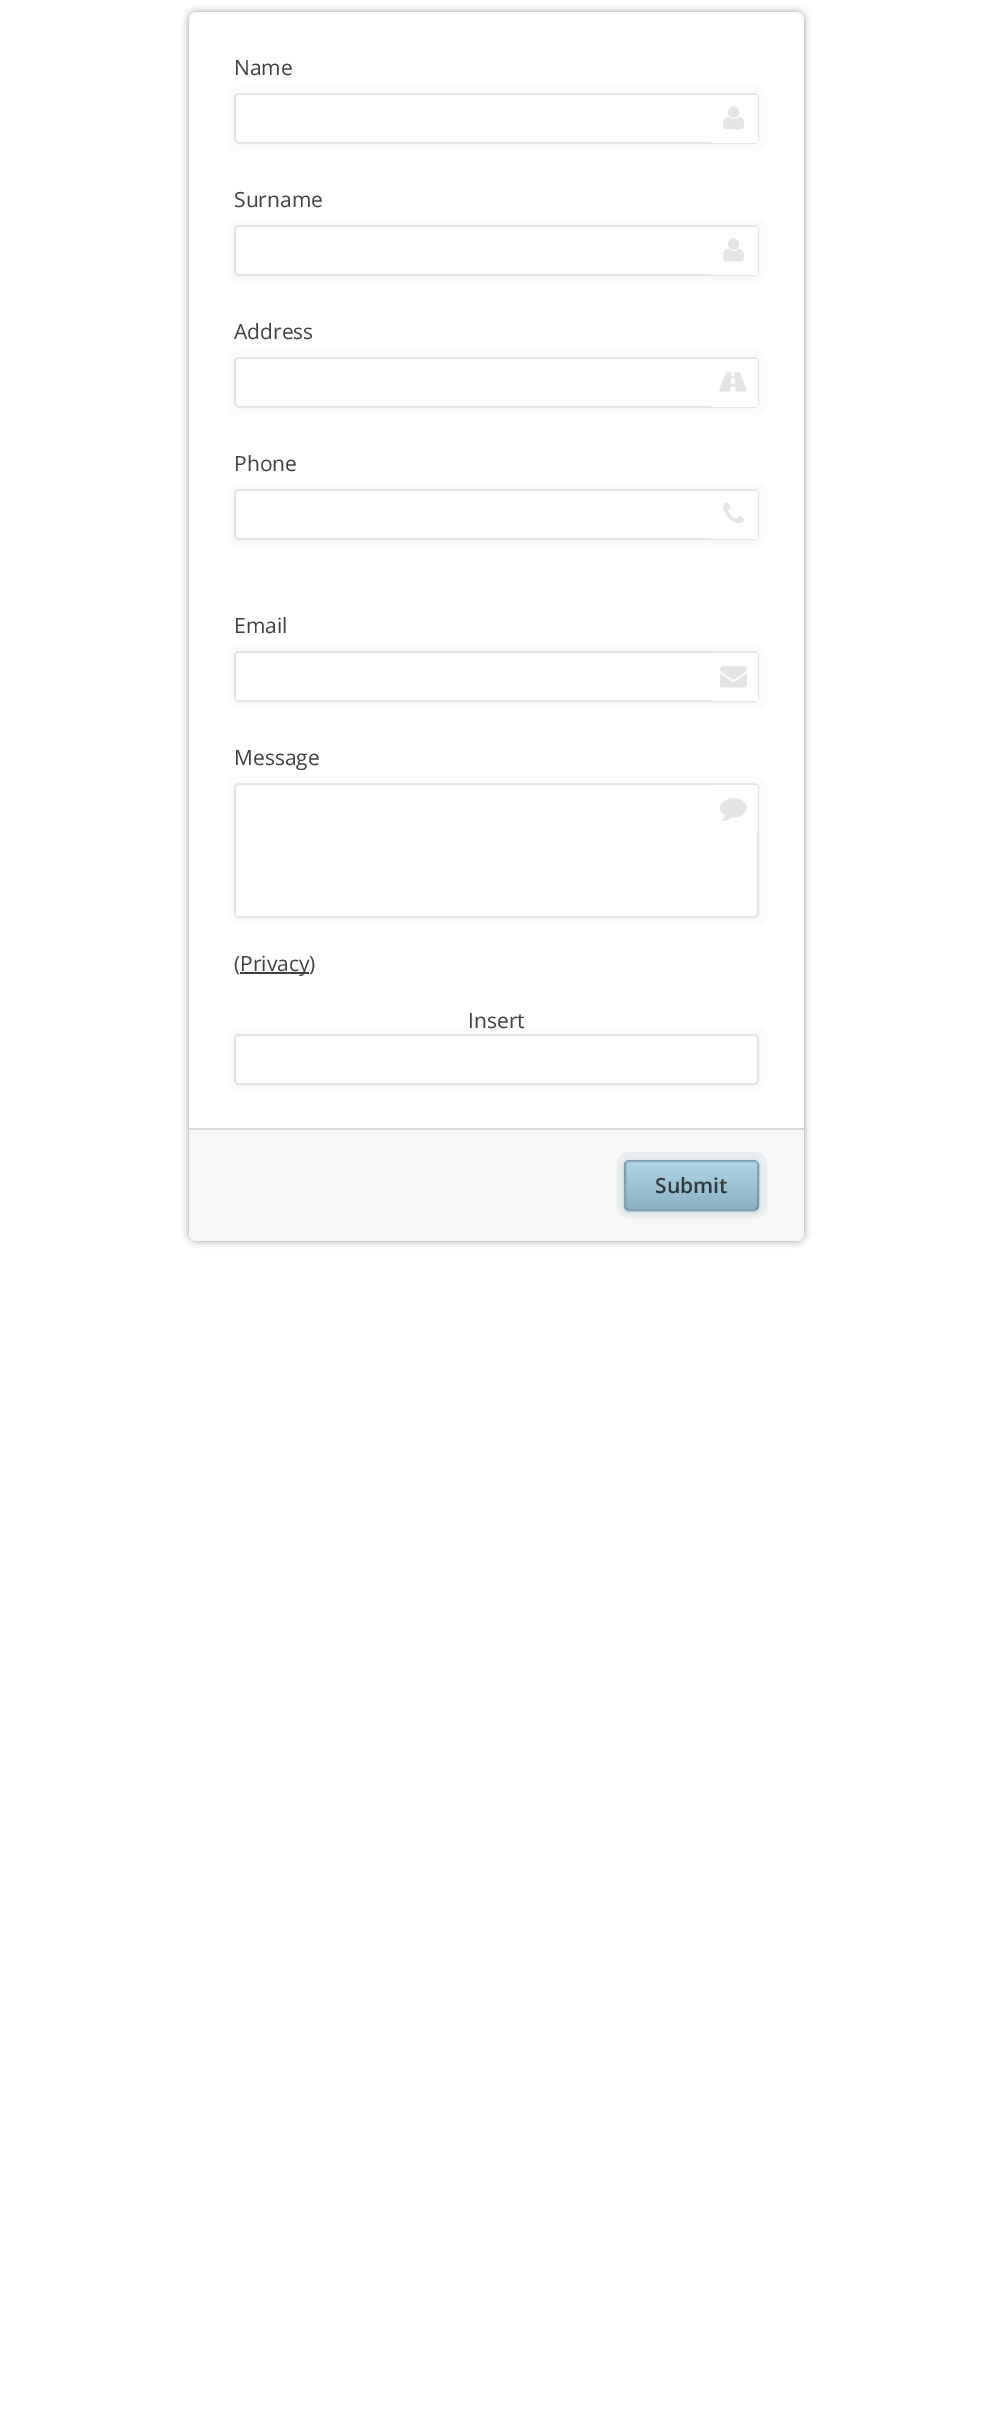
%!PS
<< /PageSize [1004 2431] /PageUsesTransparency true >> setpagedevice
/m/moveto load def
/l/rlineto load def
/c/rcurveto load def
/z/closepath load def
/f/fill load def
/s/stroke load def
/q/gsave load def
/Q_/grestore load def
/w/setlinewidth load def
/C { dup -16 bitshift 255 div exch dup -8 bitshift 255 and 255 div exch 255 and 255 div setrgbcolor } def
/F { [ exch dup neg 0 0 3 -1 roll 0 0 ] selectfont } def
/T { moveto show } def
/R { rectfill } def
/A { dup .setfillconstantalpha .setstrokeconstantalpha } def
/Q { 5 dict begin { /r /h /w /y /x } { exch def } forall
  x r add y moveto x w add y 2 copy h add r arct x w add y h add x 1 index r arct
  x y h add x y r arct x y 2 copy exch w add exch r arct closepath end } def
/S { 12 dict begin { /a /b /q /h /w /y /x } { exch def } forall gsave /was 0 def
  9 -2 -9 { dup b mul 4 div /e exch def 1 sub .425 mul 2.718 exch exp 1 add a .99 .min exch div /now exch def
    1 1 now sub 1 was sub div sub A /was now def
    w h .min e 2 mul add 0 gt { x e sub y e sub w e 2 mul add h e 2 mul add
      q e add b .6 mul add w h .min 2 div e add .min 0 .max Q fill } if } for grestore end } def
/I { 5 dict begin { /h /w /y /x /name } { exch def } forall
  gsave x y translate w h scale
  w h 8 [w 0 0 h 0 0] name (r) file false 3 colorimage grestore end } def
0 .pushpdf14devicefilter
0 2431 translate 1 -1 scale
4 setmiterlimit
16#FFFFFF C
0 0 1004 2431 R
16#999999 C
189 12 615 1229 8 4 1 S
16#FFFFFF C
189 12 615 1229 8 Q f
/OpenSans-Regular 21 F
16#404040 C
(Name) 234 75 T
16#FBFBFB C
8 w
231 90 532 58 8 Q s
16#FFFFFF C
235 94 523 49 4 Q q f Q_
16#E5E5E5 C
2 w
s
16#FFFFFF C
710 95 48 48 3 Q f
(1.rgb) 723 106 22 24 I
16#404040 C
(Surname) 234 207 T
16#FBFBFB C
8 w
231 222 532 58 8 Q s
16#FFFFFF C
235 226 523 49 4 Q q f Q_
16#E5E5E5 C
2 w
s
16#FFFFFF C
710 227 48 48 3 Q f
(1.rgb) 723 238 22 24 I
16#404040 C
(Address) 234 339 T
16#FBFBFB C
8 w
231 354 532 58 8 Q s
16#FFFFFF C
235 358 523 49 4 Q q f Q_
16#E5E5E5 C
2 w
s
16#FFFFFF C
710 359 48 48 3 Q f
(2.rgb) 719 372 28 20 I
16#404040 C
(Phone) 234 471 T
16#FBFBFB C
8 w
231 486 532 58 8 Q s
16#FFFFFF C
235 490 523 49 4 Q q f Q_
16#E5E5E5 C
2 w
s
16#FFFFFF C
710 491 48 48 3 Q f
(3.rgb) 723 502 21 22 I
16#404040 C
(Email) 234 633 T
16#FBFBFB C
8 w
231 648 532 58 8 Q s
16#FFFFFF C
235 652 523 49 4 Q q f Q_
16#E5E5E5 C
2 w
s
16#FFFFFF C
710 653 48 48 3 Q f
(4.rgb) 720 666 27 22 I
16#404040 C
(Message) 234 765 T
16#FBFBFB C
8 w
231 780 532 142 8 Q s
16#FFFFFF C
235 784 523 133 4 Q q f Q_
16#E5E5E5 C
2 w
s
16#FFFFFF C
710 785 48 48 3 Q f
(5.rgb) 720 798 27 24 I
16#404040 C
(\() 234 971 T
240 972 69 2 R
(Privacy\)) 240 971 T
16#FBFBFB C
8 w
231 1030 532 58 8 Q s
16#404040 C
(Insert) 468 1028 T
16#FFFFFF C
235 1035 523 49 4 Q q f Q_
16#E5E5E5 C
2 w
s
16#F7F7F7 C
189 1128 m 615 0 l 0 105 l 0 4.5 -3.5 8 -8 8 c -599 0 l -4.5 0 -8 -3.5 -8 -8 c z f
16#D9D9D9 C
189 1128 615 2 R
16#EBEEF0 C
8 w
621 1156 142 58 8 Q s
16#7DA1B3 C
624 1161 135 51 5 2 .5 S
16#A1CFE5 C
625 1161 133 49 4 Q q f Q_
16#7DA1B3 C
2 w
s
/OpenSans-SemiBold 21 F
16#242E33 C
(Submit) 655 1193 T
0.15 A
q 626 1161 132 48 3 Q clip newpath
<< /ShadingType 2 /ColorSpace /DeviceRGB /Coords [692 1209 692 1161] /Extend [true true] /Function << /FunctionType 2 /Domain [0 1] /C0 [0 0 0] /C1 [1 1 1] /N 1 >> >> shfill Q_
.poppdf14devicefilter showpage
